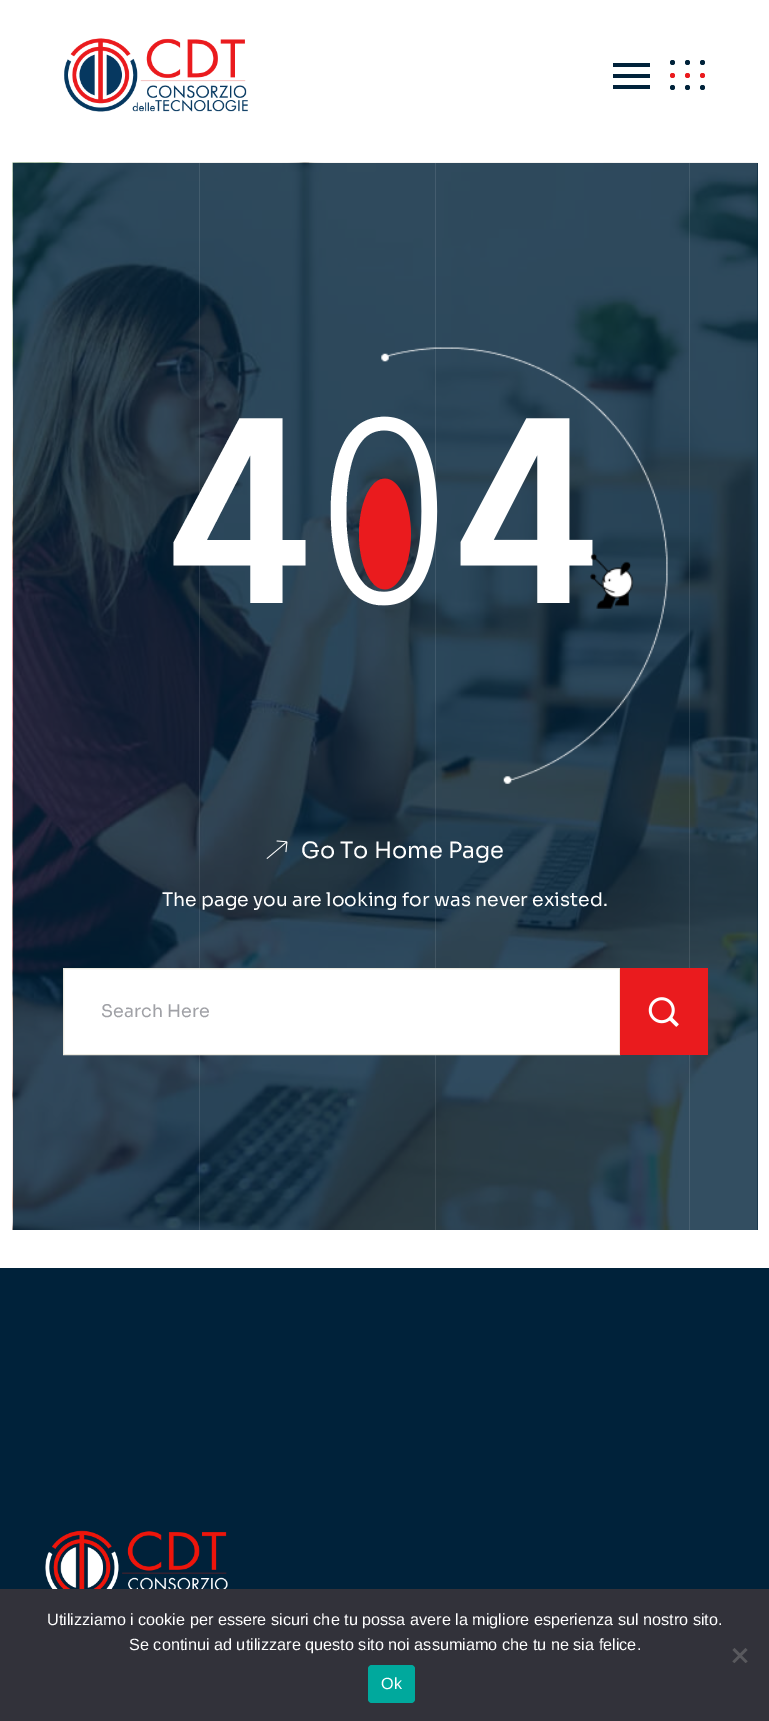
%!PS
<< /PageSize [769 1721] /PageUsesTransparency true >> setpagedevice
/m/moveto load def
/l/rlineto load def
/c/rcurveto load def
/z/closepath load def
/f/fill load def
/s/stroke load def
/q/gsave load def
/Q_/grestore load def
/C { dup -16 bitshift 255 div exch dup -8 bitshift 255 and 255 div exch 255 and 255 div setrgbcolor } def
/F { [ exch dup neg 0 0 3 -1 roll 0 0 ] selectfont } def
/T { moveto show } def
/R { rectfill } def
/A { dup .setfillconstantalpha .setstrokeconstantalpha } def
/O { newpath 0 360 arc closepath } def
/Q { 5 dict begin { /r /h /w /y /x } { exch def } forall
  x r add y moveto x w add y 2 copy h add r arct x w add y h add x 1 index r arct
  x y h add x y r arct x y 2 copy exch w add exch r arct closepath end } def
/I { 5 dict begin { /h /w /y /x /name } { exch def } forall
  gsave x y translate w h scale
  w h 8 [w 0 0 h 0 0] name (r) file false 3 colorimage grestore end } def
0 .pushpdf14devicefilter
0 1721 translate 1 -1 scale
4 setmiterlimit
16#FFFFFF C
0 0 769 1721 R
(1.rgb) 64 38 184 74 I
16#00223A C
613 63 37 4 R
613 74 37 4 R
613 85 37 4 R
672.5 62.5 2.5 O f
687.5 62.5 2.5 O f
702.5 62.5 2.5 O f
16#EA1B1E C
672.5 75.5 2.5 O f
687.5 75.5 2.5 O f
702.5 75.5 2.5 O f
16#00223A C
672.5 87.5 2.5 O f
687.5 87.5 2.5 O f
702.5 87.5 2.5 O f
757 163 1 1067 R
(2.rgb) 12 162 746 1068 I
0.1 A
16#FFFFFF C
435 163 1 1067 R
199 163 1 1067 R
689 163 1 1067 R
/Epilogue-Light 250 F
1 A
(0) 315 603 T
16#EA1B1E C
385 478.5 m 14.5 0 26 25 26 55.5 c 0 30.5 -11.5 55.5 -26 55.5 c -14.5 0 -26 -25 -26 -55.5 c 0 -30.5 11.5 -55.5 26 -55.5 c z f
/Epilogue-SemiBold 250 F
16#FFFFFF C
(4) 455 603 T
(4.rgb) 590 553 44 56 I
(3.rgb) 381 347 287 437 I
(4) 168 603 T
(5.rgb) 266 840 22 19 I
/Sora-Regular 22.5 F
(Go To Home Page) 301 858 T
/Sora-Regular 18.75 F
(The page you are looking for was never existed.) 162 906 T
63.5 968.5 m 556 0 l 0 86 l -556 0 l z q f Q_
16#ECEAE0 C
s
/Sora-Regular 17.5 F
16#A0A1A6 C
(Search Here) 101 1017 T
16#EA1B1E C
620 968 88 87 R
(6.rgb) 648 997 31 30 I
16#00223A C
0 1268 769 321 R
(7.rgb) 45 1530 183 59 I
16#32323A C
0 1589 769 132 R
/LiberationSans-Regular 16.25 F
16#FFFFFF C
(Utilizziamo i cookie per essere sicuri che tu possa avere la migliore esperienza sul nostro sito.) 47 1625 T
(Se continui ad utilizzare questo sito noi assumiamo che tu ne sia felice.) 129 1650 T
16#59595D C
745.5 1648 m 2 2 l -13 13 l -2 -1.5 l z f
732.5 1650 m 2 -2 l 13 13.5 l -2 1.5 l z f
16#00A99D C
368 1665 47 38 4 Q f
16#FFFFFF C
(Ok) 381 1689 T
.poppdf14devicefilter showpage
